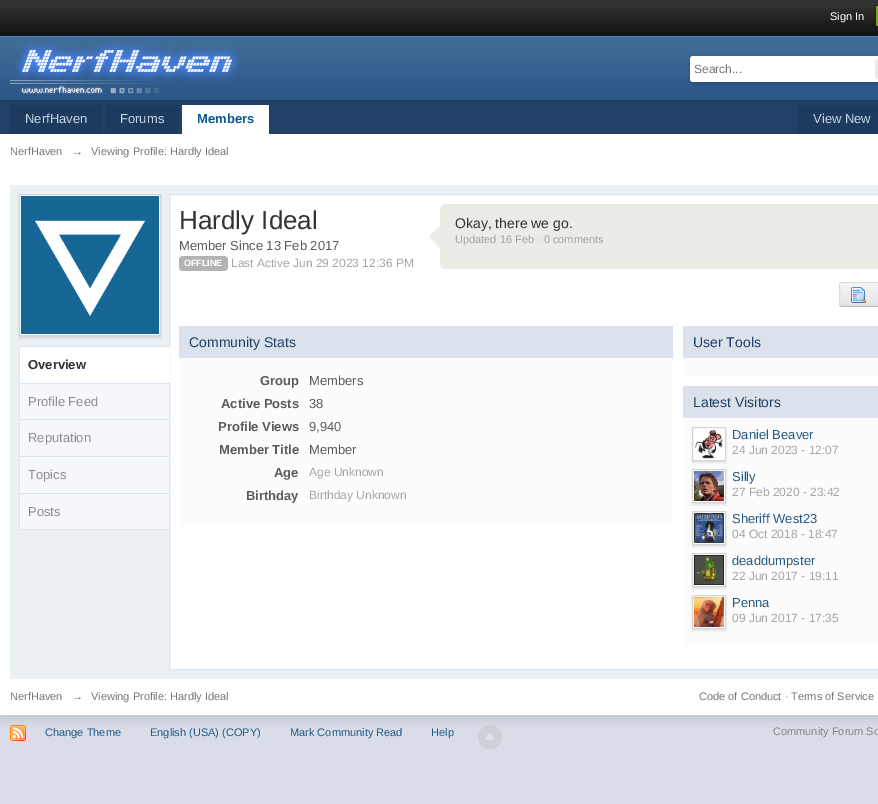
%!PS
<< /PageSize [878 804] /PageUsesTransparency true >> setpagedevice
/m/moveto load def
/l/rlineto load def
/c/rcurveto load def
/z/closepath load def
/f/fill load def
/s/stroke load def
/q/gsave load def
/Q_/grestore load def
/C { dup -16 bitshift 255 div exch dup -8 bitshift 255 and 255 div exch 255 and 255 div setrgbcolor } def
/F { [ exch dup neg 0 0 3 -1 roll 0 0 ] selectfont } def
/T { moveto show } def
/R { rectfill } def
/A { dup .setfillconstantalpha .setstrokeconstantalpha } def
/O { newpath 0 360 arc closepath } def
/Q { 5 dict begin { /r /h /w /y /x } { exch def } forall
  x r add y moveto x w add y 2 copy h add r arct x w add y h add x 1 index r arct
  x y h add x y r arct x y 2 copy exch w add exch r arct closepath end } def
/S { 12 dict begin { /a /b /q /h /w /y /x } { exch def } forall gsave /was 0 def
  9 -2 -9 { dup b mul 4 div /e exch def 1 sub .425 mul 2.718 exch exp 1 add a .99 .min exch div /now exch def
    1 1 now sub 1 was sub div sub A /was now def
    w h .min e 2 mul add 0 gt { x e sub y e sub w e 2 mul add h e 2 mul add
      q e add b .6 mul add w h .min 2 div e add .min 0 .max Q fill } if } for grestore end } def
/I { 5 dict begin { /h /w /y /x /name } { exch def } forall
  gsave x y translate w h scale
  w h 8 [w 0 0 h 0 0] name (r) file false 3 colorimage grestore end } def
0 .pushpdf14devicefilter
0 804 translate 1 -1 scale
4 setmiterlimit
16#D8DDE8 C
0 0 878 804 R
16#323232 C
0 0 878 8 R
(1.rgb) 0 8 878 28 I
/LiberationSans-Regular 11 F
16#FFFFFF C
(Sign In) 830 20 T
16#000000 C
876 7 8 20 0 2 .4 S
16#7BA60D C
876 6 2 20 R
16#95B83D C
877 7 1 1 R
(2.rgb) 0 36 878 64 I
16#1B3759 C
0 100 878 1 R
(3.rgb) 10 41 231 53 I
16#000000 C
690 58 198 26 4 2 .2 S
16#FFFFFF C
693 56 m 185 0 l 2 0 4 2 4 4 c 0 18 l 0 2 -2 4 -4 4 c -185 0 l -1.5 0 -3 -1.5 -3 -3 c 0 -20 l 0 -1.5 1.5 -3 3 -3 c z f
/LiberationSans-Regular 12 F
16#777777 C
(Search...) 694 73 T
16#EAEAEA C
875 59 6 20 3 Q f
16#204066 C
0 101 878 33 R
16#000000 C
0 139 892 581 0 4.5 .1 S
16#1C3B5F C
10 105 92 29 R
/LiberationSans-Regular 13 F
16#C5D5E2 C
(NerfHaven) 25 123 T
16#1C3B5F C
105 105 74 29 R
16#C5D5E2 C
(Forums) 120 123 T
16#FFFFFF C
182 105 87 29 R
/LiberationSans-Bold 13 F
16#0B5794 C
(Members) 197 123 T
16#1C3B5F C
798 105 80 29 R
/LiberationSans-Regular 13 F
16#C5D5E2 C
(View New) 813 123 T
16#FFFFFF C
0 134 878 581 R
/LiberationSans-Regular 11 F
16#777777 C
(NerfHaven) 10 155 T
(→) 72 155 T
(Viewing Profile: Hardly Ideal) 91 155 T
16#EBF0F3 C
10 185 868 494 R
16#000000 C
19 196 142 142 0 1 .1 S
16#FFFFFF C
19.5 194.5 m 141 0 l 0 141 l -141 0 l z q f Q_
16#D5D5D5 C
s
(4.rgb) 21 196 138 138 I
16#DBE4EF C
19 346 150 1 R
19 346 1 184 R
20 383 149 1 R
16#FFFFFF C
169.5 194.5 m 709 0 l 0 475 l -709 0 l z q f Q_
16#DBE4EF C
s
16#FFFFFF C
20 347 150 36 R
/LiberationSans-Bold 13 F
16#323232 C
(Overview) 28 369 T
16#F6F8FB C
20 384 149 35 R
16#DBE4EF C
20 419 149 1 R
/LiberationSans-Regular 13 F
16#8D8D8D C
(Profile Feed) 28 406 T
16#F6F8FB C
20 420 149 36 R
16#DBE4EF C
20 456 149 1 R
16#8D8D8D C
(Reputation) 28 442 T
16#F6F8FB C
20 457 149 36 R
16#DBE4EF C
20 493 149 1 R
16#8D8D8D C
(Topics) 28 479 T
16#F6F8FB C
20 494 149 35 R
16#DBE4EF C
20 529 149 1 R
16#8D8D8D C
(Posts) 28 516 T
/LiberationSans-Regular 26 F
16#323232 C
(Hardly Ideal) 179 229 T
/LiberationSans-Regular 13 F
16#5A5A5A C
(Member Since 13 Feb 2017) 179 250 T
16#B3B3B3 C
179 256 49 15 4 Q f
/LiberationSans-Bold 9 F
16#FFFFFF C
(OFFLINE) 184 266 T
/LiberationSans-Regular 12 F
16#A4A4A4 C
(Last Active Jun 29 2023 12:36 PM) 231 267 T
(5.rgb) 429 226 11 22 I
16#EBECE5 C
440 204 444 65 6 Q f
/LiberationSans-Regular 14 F
16#323232 C
(Okay, there we go.) 455 228 T
/LiberationSans-Regular 11 F
16#A4A4A4 C
(Updated 16 Feb · 0 comments) 455 243 T
16#B3B3B3 C
839 303 m 0 2 1 4 3 4 c 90 0 l 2 0 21 5 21 -4 c -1 2 l -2 1 l -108 0 l -2 0 -3 -1 -3 -3 c z f
q
839 282 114 24 3 Q clip newpath
q 839 283 m 39 0 l 0 22 l -39 0 l z clip newpath
<< /ShadingType 2 /ColorSpace /DeviceRGB /Coords [840 283 840 305] /Extend [true true] /Function << /FunctionType 2 /Domain [0 1] /C0 [.965 .965 .965] /C1 [.898 .898 .898] /N 1 >> >> shfill Q_
Q_
16#FFFFFF C
842 284 m 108 0 l 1 0 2 1 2 2 c 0 -1 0 -3 -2 -3 c -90 0 l 0 0 -20 -5 -20 3 c 0 -1 1 -2 2 -2 c z f
16#DBDBDB C
839.5 282.5 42 23 2.5 Q s
(6.rgb) 851 287 15 16 I
16#FCFCFC C
179 358 494 168 R
16#DBE2EC C
179 326 494 32 R
/LiberationSans-Regular 14 F
16#204066 C
(Community Stats) 189 347 T
/LiberationSans-Bold 13 F
16#5A5A5A C
(Group) 260 385 T
/LiberationSans-Regular 13 F
(Members) 309 385 T
/LiberationSans-Bold 13 F
(Active Posts) 221 408 T
/LiberationSans-Regular 13 F
(38) 309 408 T
/LiberationSans-Bold 13 F
(Profile Views) 218 431 T
/LiberationSans-Regular 13 F
(9,940) 309 431 T
/LiberationSans-Bold 13 F
(Member Title) 219 454 T
/LiberationSans-Regular 13 F
(Member) 309 454 T
/LiberationSans-Bold 13 F
(Age) 274 477 T
/LiberationSans-Regular 12 F
16#A4A4A4 C
(Age Unknown) 309 476 T
/LiberationSans-Bold 13 F
16#5A5A5A C
(Birthday) 246 500 T
/LiberationSans-Regular 12 F
16#A4A4A4 C
(Birthday Unknown) 309 499 T
16#FCFCFC C
683 358 195 18 R
16#DBE2EC C
683 326 195 32 R
/LiberationSans-Regular 14 F
16#204066 C
(User Tools) 693 347 T
16#FCFCFC C
683 418 195 228 R
16#DBE2EC C
683 386 195 32 R
16#204066 C
(Latest Visitors) 693 407 T
16#000000 C
692 429 34 34 0 1 .1 S
16#FFFFFF C
692.5 427.5 m 33 0 l 0 33 l -33 0 l z q f Q_
16#D5D5D5 C
s
(7.rgb) 694 429 29 30 I
/LiberationSans-Regular 13 F
16#225985 C
(Daniel Beaver) 732 439 T
/LiberationSans-Regular 12 F
16#A4A4A4 C
(24 Jun 2023 - 12:07) 732 454 T
16#000000 C
692 471 34 34 0 1 .1 S
16#FFFFFF C
692.5 469.5 m 33 0 l 0 33 l -33 0 l z q f Q_
16#D5D5D5 C
s
(8.rgb) 694 471 30 30 I
/LiberationSans-Regular 13 F
16#225985 C
(Silly) 732 481 T
/LiberationSans-Regular 12 F
16#A4A4A4 C
(27 Feb 2020 - 23:42) 732 496 T
16#000000 C
692 513 34 34 0 1 .1 S
16#FFFFFF C
692.5 511.5 m 33 0 l 0 33 l -33 0 l z q f Q_
16#D5D5D5 C
s
(9.rgb) 694 513 30 30 I
/LiberationSans-Regular 13 F
16#225985 C
(Sheriff West23) 732 523 T
/LiberationSans-Regular 12 F
16#A4A4A4 C
(04 Oct 2018 - 18:47) 732 538 T
16#000000 C
692 555 34 34 0 1 .1 S
16#FFFFFF C
692.5 553.5 m 33 0 l 0 33 l -33 0 l z q f Q_
16#D5D5D5 C
s
(10.rgb) 694 555 30 30 I
/LiberationSans-Regular 13 F
16#225985 C
(deaddumpster) 732 565 T
/LiberationSans-Regular 12 F
16#A4A4A4 C
(22 Jun 2017 - 19:11) 732 580 T
16#000000 C
692 597 34 34 0 1 .1 S
16#FFFFFF C
692.5 595.5 m 33 0 l 0 33 l -33 0 l z q f Q_
16#D5D5D5 C
s
(11.rgb) 694 597 30 30 I
/LiberationSans-Regular 13 F
16#225985 C
(Penna) 732 607 T
/LiberationSans-Regular 12 F
16#A4A4A4 C
(09 Jun 2017 - 17:35) 732 622 T
/LiberationSans-Regular 11 F
16#777777 C
(NerfHaven) 10 700 T
(→) 72 700 T
(Viewing Profile: Hardly Ideal) 91 700 T
(Code of Conduct ·) 699 700 T
(Terms of Service) 791 700 T
(12.rgb) 10 725 16 16 I
16#225985 C
(Change Theme) 45 736 T
(English \(USA\) \(COPY\)) 150 736 T
(Mark Community Read) 290 736 T
(Help) 431 736 T
0.4 A
16#BDBDBD C
490 737 12 O f
1 A
(13.rgb) 485 732 10 8 I
16#848484 C
(Community Forum So) 773 735 T
.poppdf14devicefilter showpage
